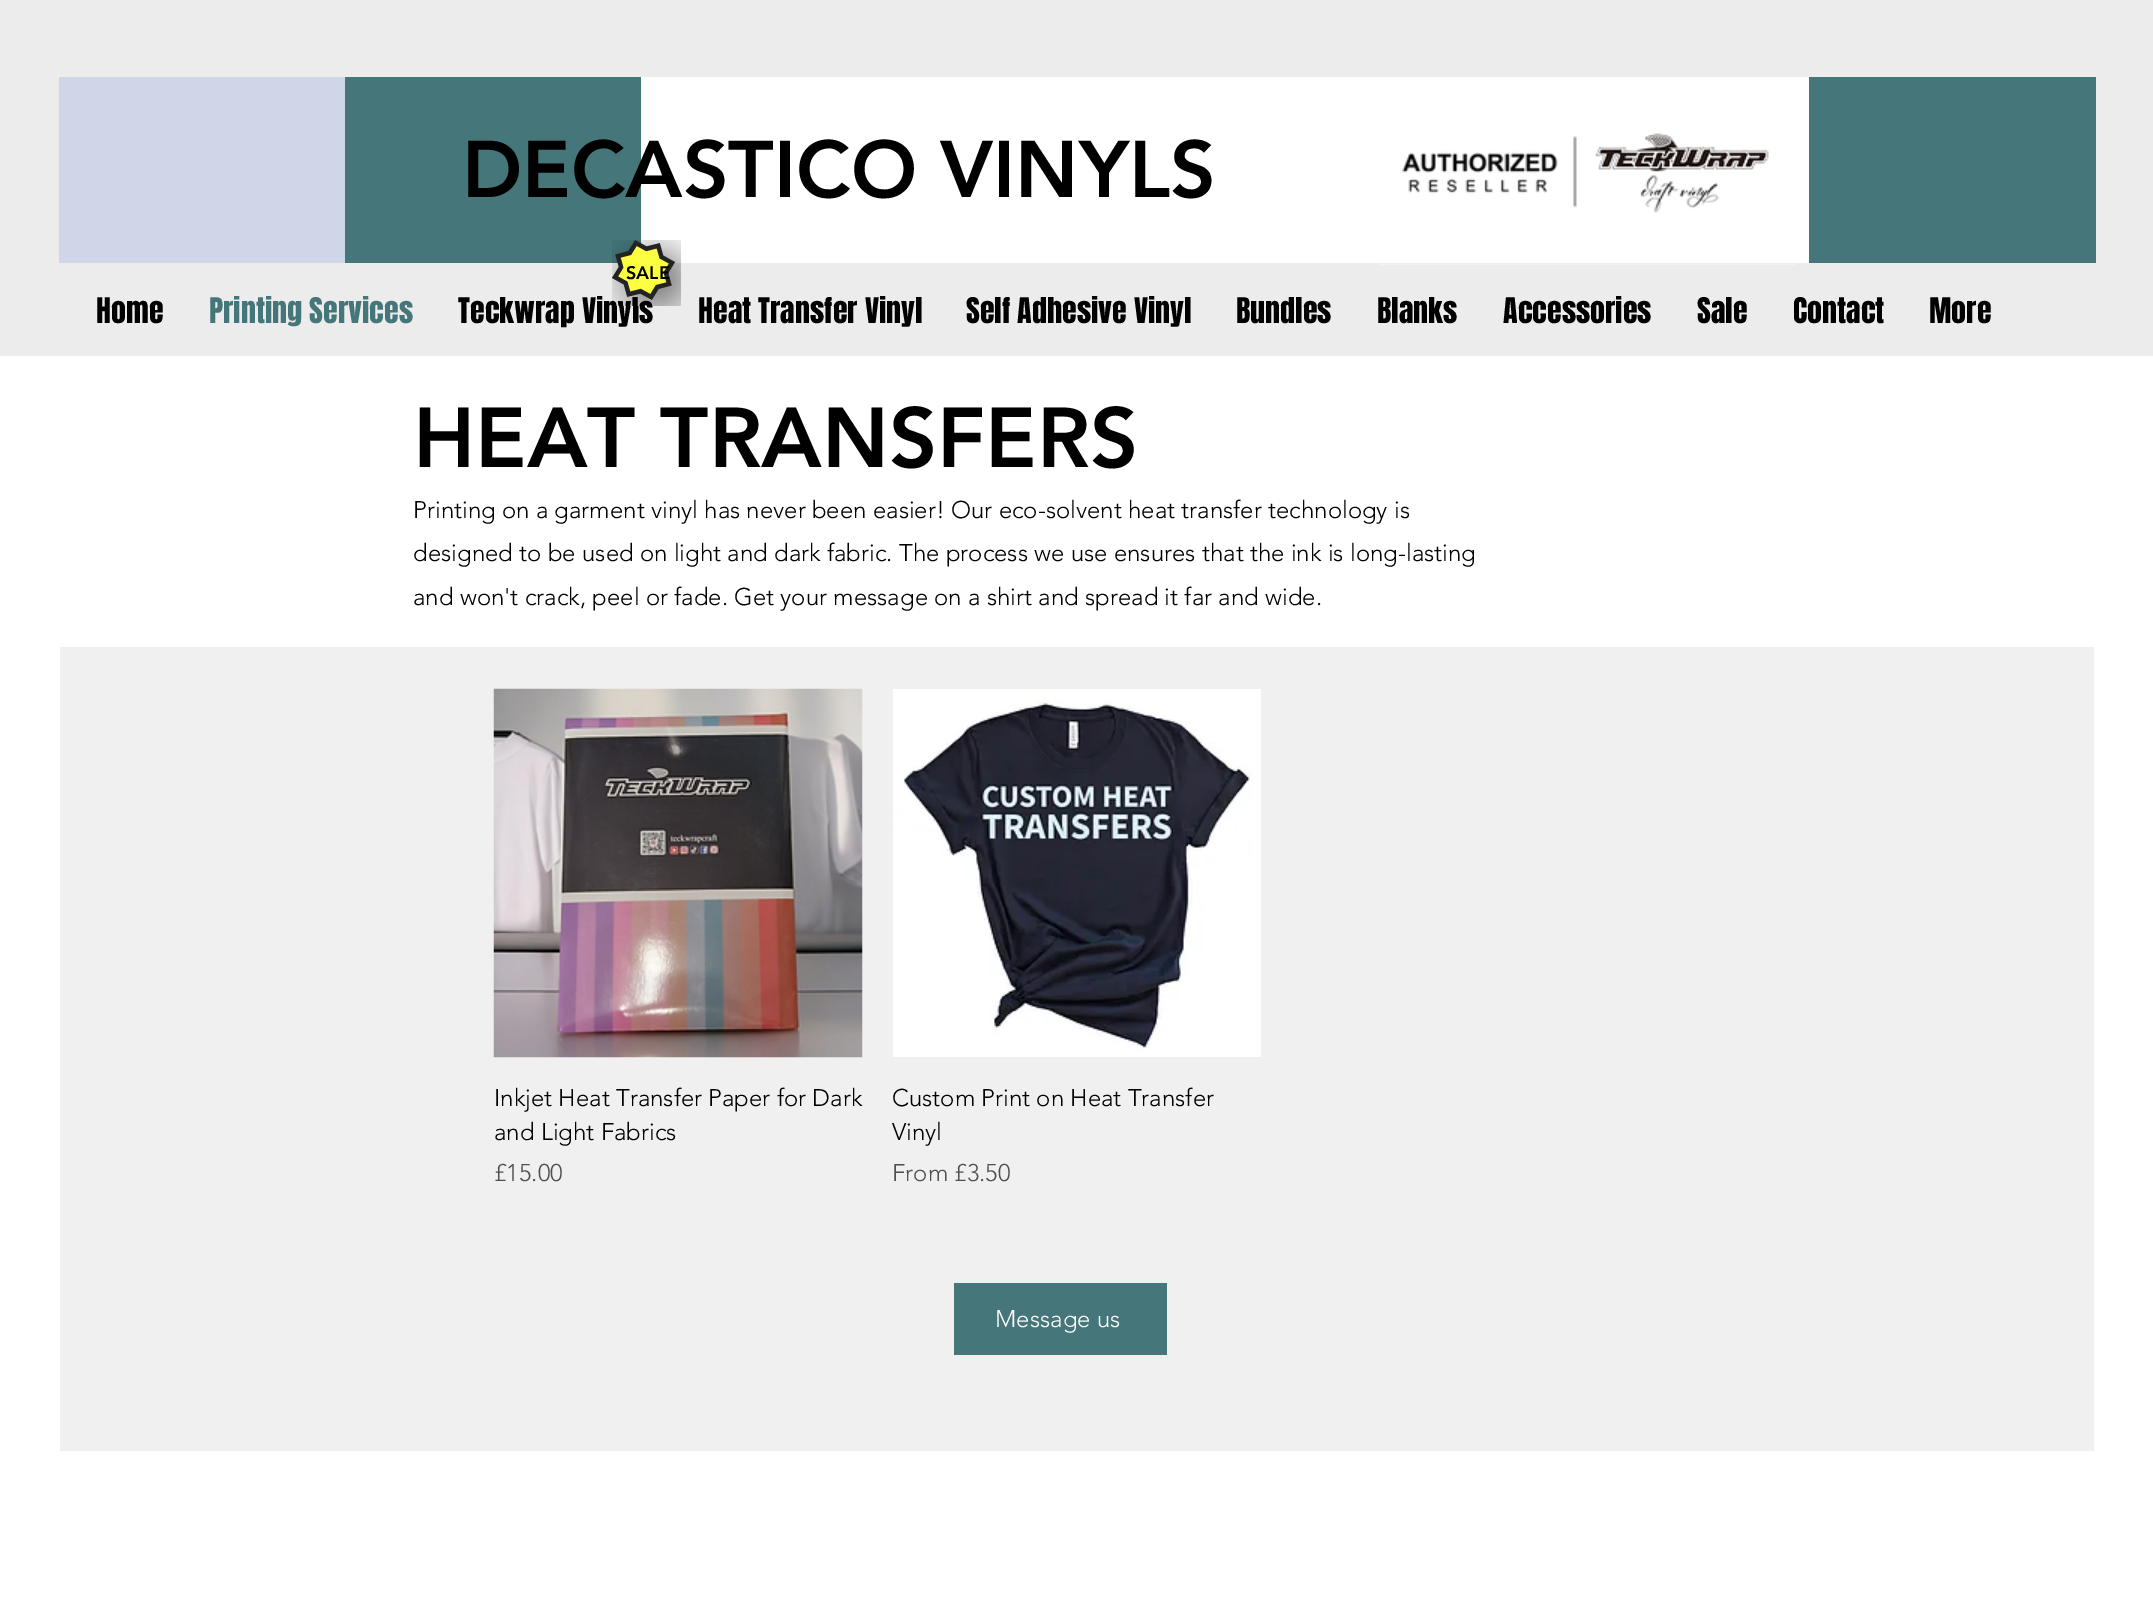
%!PS
<< /PageSize [2153 1623] >> setpagedevice
/C { dup -16 bitshift 255 div exch dup -8 bitshift 255 and 255 div exch 255 and 255 div setrgbcolor } def
/F { [ exch dup neg 0 0 3 -1 roll 0 0 ] selectfont } def
/T { moveto show } def
/R { rectfill } def
/I { 5 dict begin { /h /w /y /x /name } { exch def } forall
  gsave x y translate w h scale
  w h 8 [w 0 0 h 0 0] name (r) file false 3 colorimage grestore end } def
0 1623 translate 1 -1 scale
4 setmiterlimit
16#FFFFFF C
0 0 2153 1623 R
16#EDECEC C
0 0 2153 356 R
16#FFFFFF C
641 77 1168 186 R
16#CFD6E8 C
59 77 286 186 R
16#44767A C
345 77 296 186 R
1809 77 287 186 R
/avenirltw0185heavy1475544-Black 79.5 F
16#000000 C
(DECASTICO VINYLS) 462 197 T
(1.rgb) 1380 133 415 132 I
/Anton-Regular 30 F
(Teckwrap Vinyls) 458 323 T
(2.rgb) 612 240 69 66 I
/avenirltw0185heavy1475544-Black 18 F
(SALE) 626 279 T
/Anton-Regular 30 F
(Home) 96 323 T
16#44767A C
(Printing Services) 209 323 T
16#000000 C
(Heat Transfer Vinyl) 698 323 T
(Self Adhesive Vinyl) 966 323 T
(Bundles) 1236 323 T
(Blanks) 1377 323 T
(Accessories) 1503 323 T
(Sale) 1697 323 T
(Contact) 1793 323 T
(More) 1929 323 T
/avenirltw0185heavy1475544-Black 84 F
(HEAT TRANSFERS) 413 467 T
/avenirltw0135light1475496-Light 24 F
(Printing on a garment vinyl has never been easier! Our eco-solvent heat transfer technology is) 413 518 T
(designed to be used on light and dark fabric. The process we use ensures that the ink is long-lasting) 413 561 T
(and won't crack, peel or fade. Get your message on a shirt and spread it far and wide.) 413 605 T
16#F1F0F0 C
60 647 2034 804 R
(3.rgb) 493 688 370 370 I
16#000000 C
(Inkjet Heat Transfer Paper for Dark) 494 1106 T
(and Light Fabrics) 494 1140 T
16#524E4E C
(£15.00) 494 1181 T
(4.rgb) 893 689 368 368 I
16#000000 C
(Custom Print on Heat Transfer) 892 1106 T
(Vinyl) 892 1140 T
16#524E4E C
(From £3.50) 892 1181 T
16#44767A C
954 1283 213 72 R
16#FFFFFF C
(Message us) 995 1327 T
showpage
